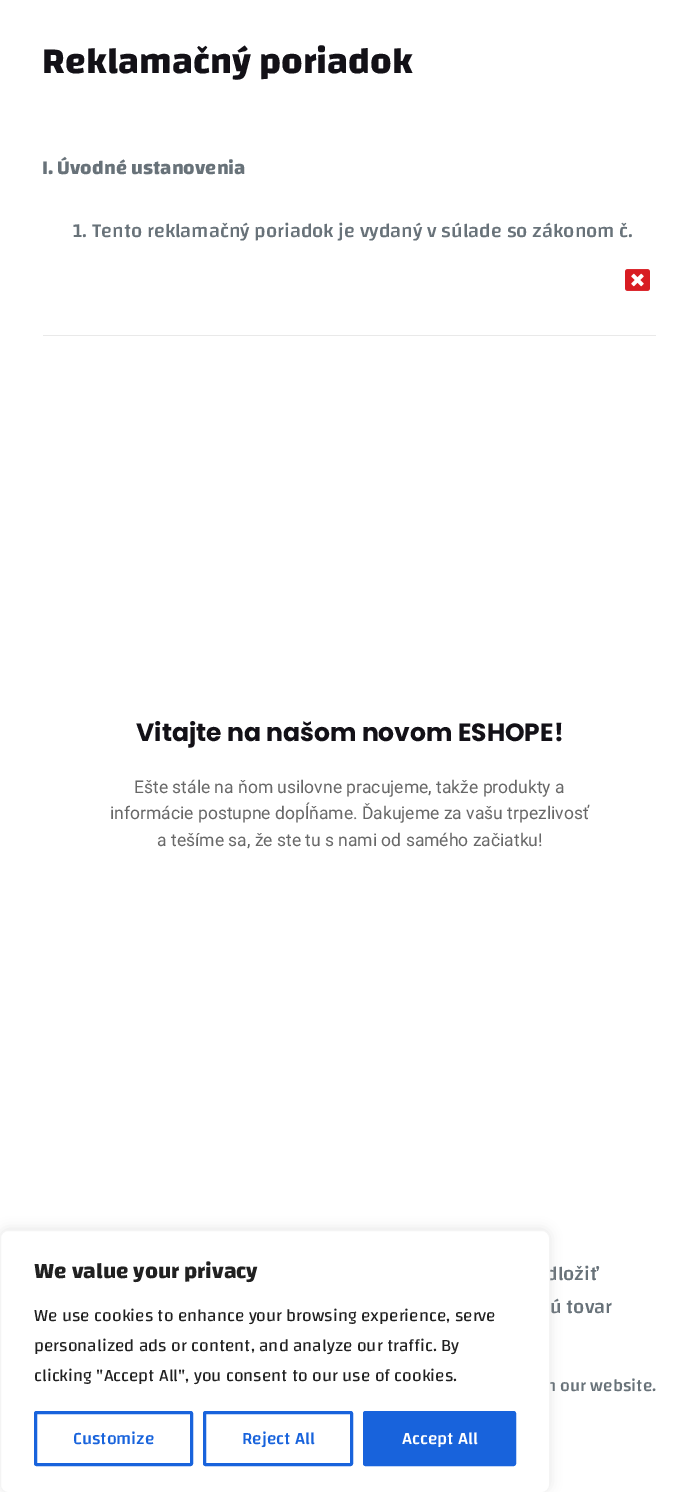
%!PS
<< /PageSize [698 1492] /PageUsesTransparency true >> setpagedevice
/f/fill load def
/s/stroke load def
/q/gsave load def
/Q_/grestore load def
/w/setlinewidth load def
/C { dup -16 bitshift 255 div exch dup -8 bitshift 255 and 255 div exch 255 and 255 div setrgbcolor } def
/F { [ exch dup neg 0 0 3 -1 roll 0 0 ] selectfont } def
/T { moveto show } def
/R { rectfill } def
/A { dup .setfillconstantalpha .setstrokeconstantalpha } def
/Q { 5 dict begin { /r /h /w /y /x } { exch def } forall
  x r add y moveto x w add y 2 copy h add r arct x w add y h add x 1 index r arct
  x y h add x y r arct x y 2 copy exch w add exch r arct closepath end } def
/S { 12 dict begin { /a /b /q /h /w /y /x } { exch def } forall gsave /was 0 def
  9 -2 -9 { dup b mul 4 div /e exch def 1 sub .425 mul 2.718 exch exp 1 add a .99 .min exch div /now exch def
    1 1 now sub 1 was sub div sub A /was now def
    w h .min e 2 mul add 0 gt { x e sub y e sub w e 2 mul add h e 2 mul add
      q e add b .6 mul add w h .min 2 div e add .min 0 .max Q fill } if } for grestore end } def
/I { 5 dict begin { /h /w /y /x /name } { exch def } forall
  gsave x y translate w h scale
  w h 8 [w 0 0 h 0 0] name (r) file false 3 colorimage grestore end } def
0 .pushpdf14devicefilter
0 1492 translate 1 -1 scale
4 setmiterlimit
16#FFFFFF C
0 0 698 1492 R
/Changa-Bold 37.5 F
16#131117 C
(Reklamačný poriadok) 42 73 T
/Changa-Bold 20 F
16#687279 C
(I. Úvodné ustanovenia) 42 174 T
/Changa-Medium 20 F
(1. Tento reklamačný poriadok je vydaný v súlade so zákonom č.) 73 237 T
(dložiť) 546 1280 T
(ú tovar) 550 1313 T
16#E9E9E9 C
43 335 613 1 R
(1.rgb) 625 269 25 22 I
/Poppins-Bold 25 F
16#131117 C
(Vitajte na našom novom ESHOPE!) 136 741 T
/Roboto-Regular 17.5 F
16#686868 C
(Ešte stále na ňom usilovne pracujeme, takže produkty a) 134 793 T
(informácie postupne dopĺňame. Ďakujeme za vašu trpezlivosť) 110 819 T
(a tešíme sa, že ste tu s nami od samého začiatku!) 157 846 T
16#ACABAB C
0 1229 550 262 8 6 .3 S
/Changa-Medium 17.5 F
16#687279 C
(n our website.) 546 1391 T
16#FFFFFF C
.5 1230.5 549 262 7.5 Q q f Q_
16#F4F4F4 C
s
/Changa-Bold 22.5 F
16#212121 C
(We value your privacy) 34 1278 T
/Changa-Regular 17.5 F
(We use cookies to enhance your browsing experience, serve) 34 1321 T
(personalized ads or content, and analyze our traffic. By) 34 1351 T
(clicking "Accept All", you consent to our use of cookies.) 34 1381 T
16#1863DC C
3 w
35.5 1412.5 156 52 1 Q s
/Changa-Medium 17.5 F
(Customize) 73 1444 T
204.5 1412.5 147 52 1 Q s
(Reject All) 242 1444 T
364.5 1412.5 150 52 1 Q q f Q_
s
16#FFFFFF C
(Accept All) 402 1444 T
.poppdf14devicefilter showpage
